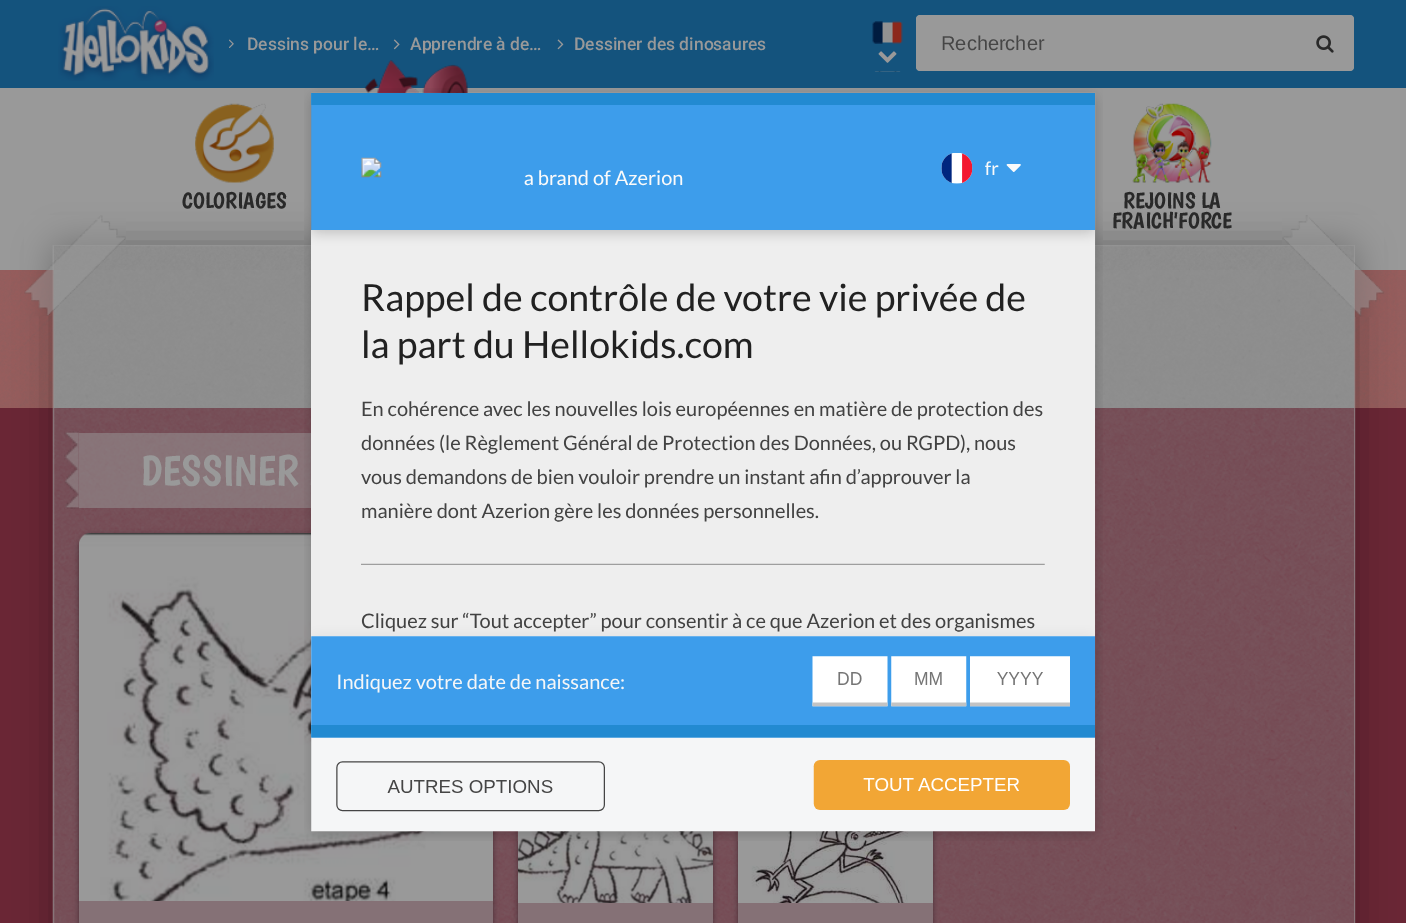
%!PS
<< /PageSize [1406 923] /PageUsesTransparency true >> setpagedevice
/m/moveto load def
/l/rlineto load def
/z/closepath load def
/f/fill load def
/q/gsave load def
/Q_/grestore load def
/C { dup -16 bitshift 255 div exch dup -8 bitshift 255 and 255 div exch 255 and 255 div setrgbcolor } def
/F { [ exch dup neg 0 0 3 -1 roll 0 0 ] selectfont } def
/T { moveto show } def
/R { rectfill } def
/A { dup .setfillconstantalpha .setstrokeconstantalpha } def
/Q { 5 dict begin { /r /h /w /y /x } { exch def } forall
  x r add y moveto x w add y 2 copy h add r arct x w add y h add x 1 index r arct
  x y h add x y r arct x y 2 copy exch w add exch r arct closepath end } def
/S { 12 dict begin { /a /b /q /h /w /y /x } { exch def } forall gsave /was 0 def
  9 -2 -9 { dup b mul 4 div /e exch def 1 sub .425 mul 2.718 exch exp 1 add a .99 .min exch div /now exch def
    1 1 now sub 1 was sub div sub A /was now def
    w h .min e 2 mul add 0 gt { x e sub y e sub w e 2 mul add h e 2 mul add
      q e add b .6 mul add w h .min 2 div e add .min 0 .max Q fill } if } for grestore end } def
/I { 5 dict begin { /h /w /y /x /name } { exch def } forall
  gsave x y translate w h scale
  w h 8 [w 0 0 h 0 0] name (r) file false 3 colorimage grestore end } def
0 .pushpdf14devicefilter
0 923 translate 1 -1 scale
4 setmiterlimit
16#999999 C
0 0 1406 923 R
16#14537D C
0 0 1406 88 R
(1.rgb) 58 6 156 75 I
(2.rgb) 229 39 5 9 I
/Roboto-Medium 17.5 F
16#999999 C
(Dessins pour le…) 247 50 T
(3.rgb) 393 39 7 11 I
(Apprendre à de…) 410 50 T
(4.rgb) 557 39 7 11 I
(Dessiner des dinosaures) 574 50 T
(5.rgb) 872 21 31 51 I
16#14537D C
873 52 29 19 R
(6.rgb) 878 51 19 12 I
16#999999 C
916 15 438 56 4 Q f
/LiberationSans-Regular 20 F
16#464646 C
(Rechercher) 941 50 T
(7.rgb) 1316 35 18 18 I
(9.rgb) 364 60 104 33 I
16#919191 C
54 245 1300 25 R
(13.rgb) 54 245 1300 25 I
16#975C5C C
0 270 1406 138 R
(16.rgb) 0 270 1406 138 I
16#919191 C
54 270 1300 138 R
16#6A2635 C
0 408 1406 515 R
q
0 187 m 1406 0 l 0 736 l -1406 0 l z 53 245 m 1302 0 l 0 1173 l -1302 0 l z eoclip newpath
16#000000 C
53 245 1302 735 0 19 .3 S
Q_
(12.rgb) 52 245 1303 678 I
0.5 A
16#999999 C
53.5 245.5 1301 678 rectstroke
79 433 232 75 R
1 A
16#000000 C
79 535 414 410 13 3 .4 S
16#999999 C
79 533 414 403 13 Q f
(18.rgb) 79 533 414 368 I
16#000000 C
518 755 195 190 13 3 .4 S
(19.rgb) 518 831 195 72 I
738 755 195 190 13 3 .4 S
16#999999 C
932 831 1 72 R
(20.rgb) 738 831 195 72 I
(8.rgb) 304 88 799 753 I
(10.rgb) 195 103 79 80 I
/Boogaloo-Regular 22.5 F
16#292929 C
(COLORIAGES) 182 208 T
(11.rgb) 1132 103 80 80 I
(REJOINS LA) 1123 208 T
(FRAICH'FORCE) 1112 228 T
(14.rgb) 24 215 102 101 I
(15.rgb) 1282 215 102 102 I
(17.rgb) 64 431 15 78 I
/Boogaloo-Regular 42.5 F
16#999999 C
(DESSINER) 141 485 T
16#857176 C
79 901 414 22 R
518 903 195 20 R
738 903 195 20 R
.poppdf14devicefilter showpage
